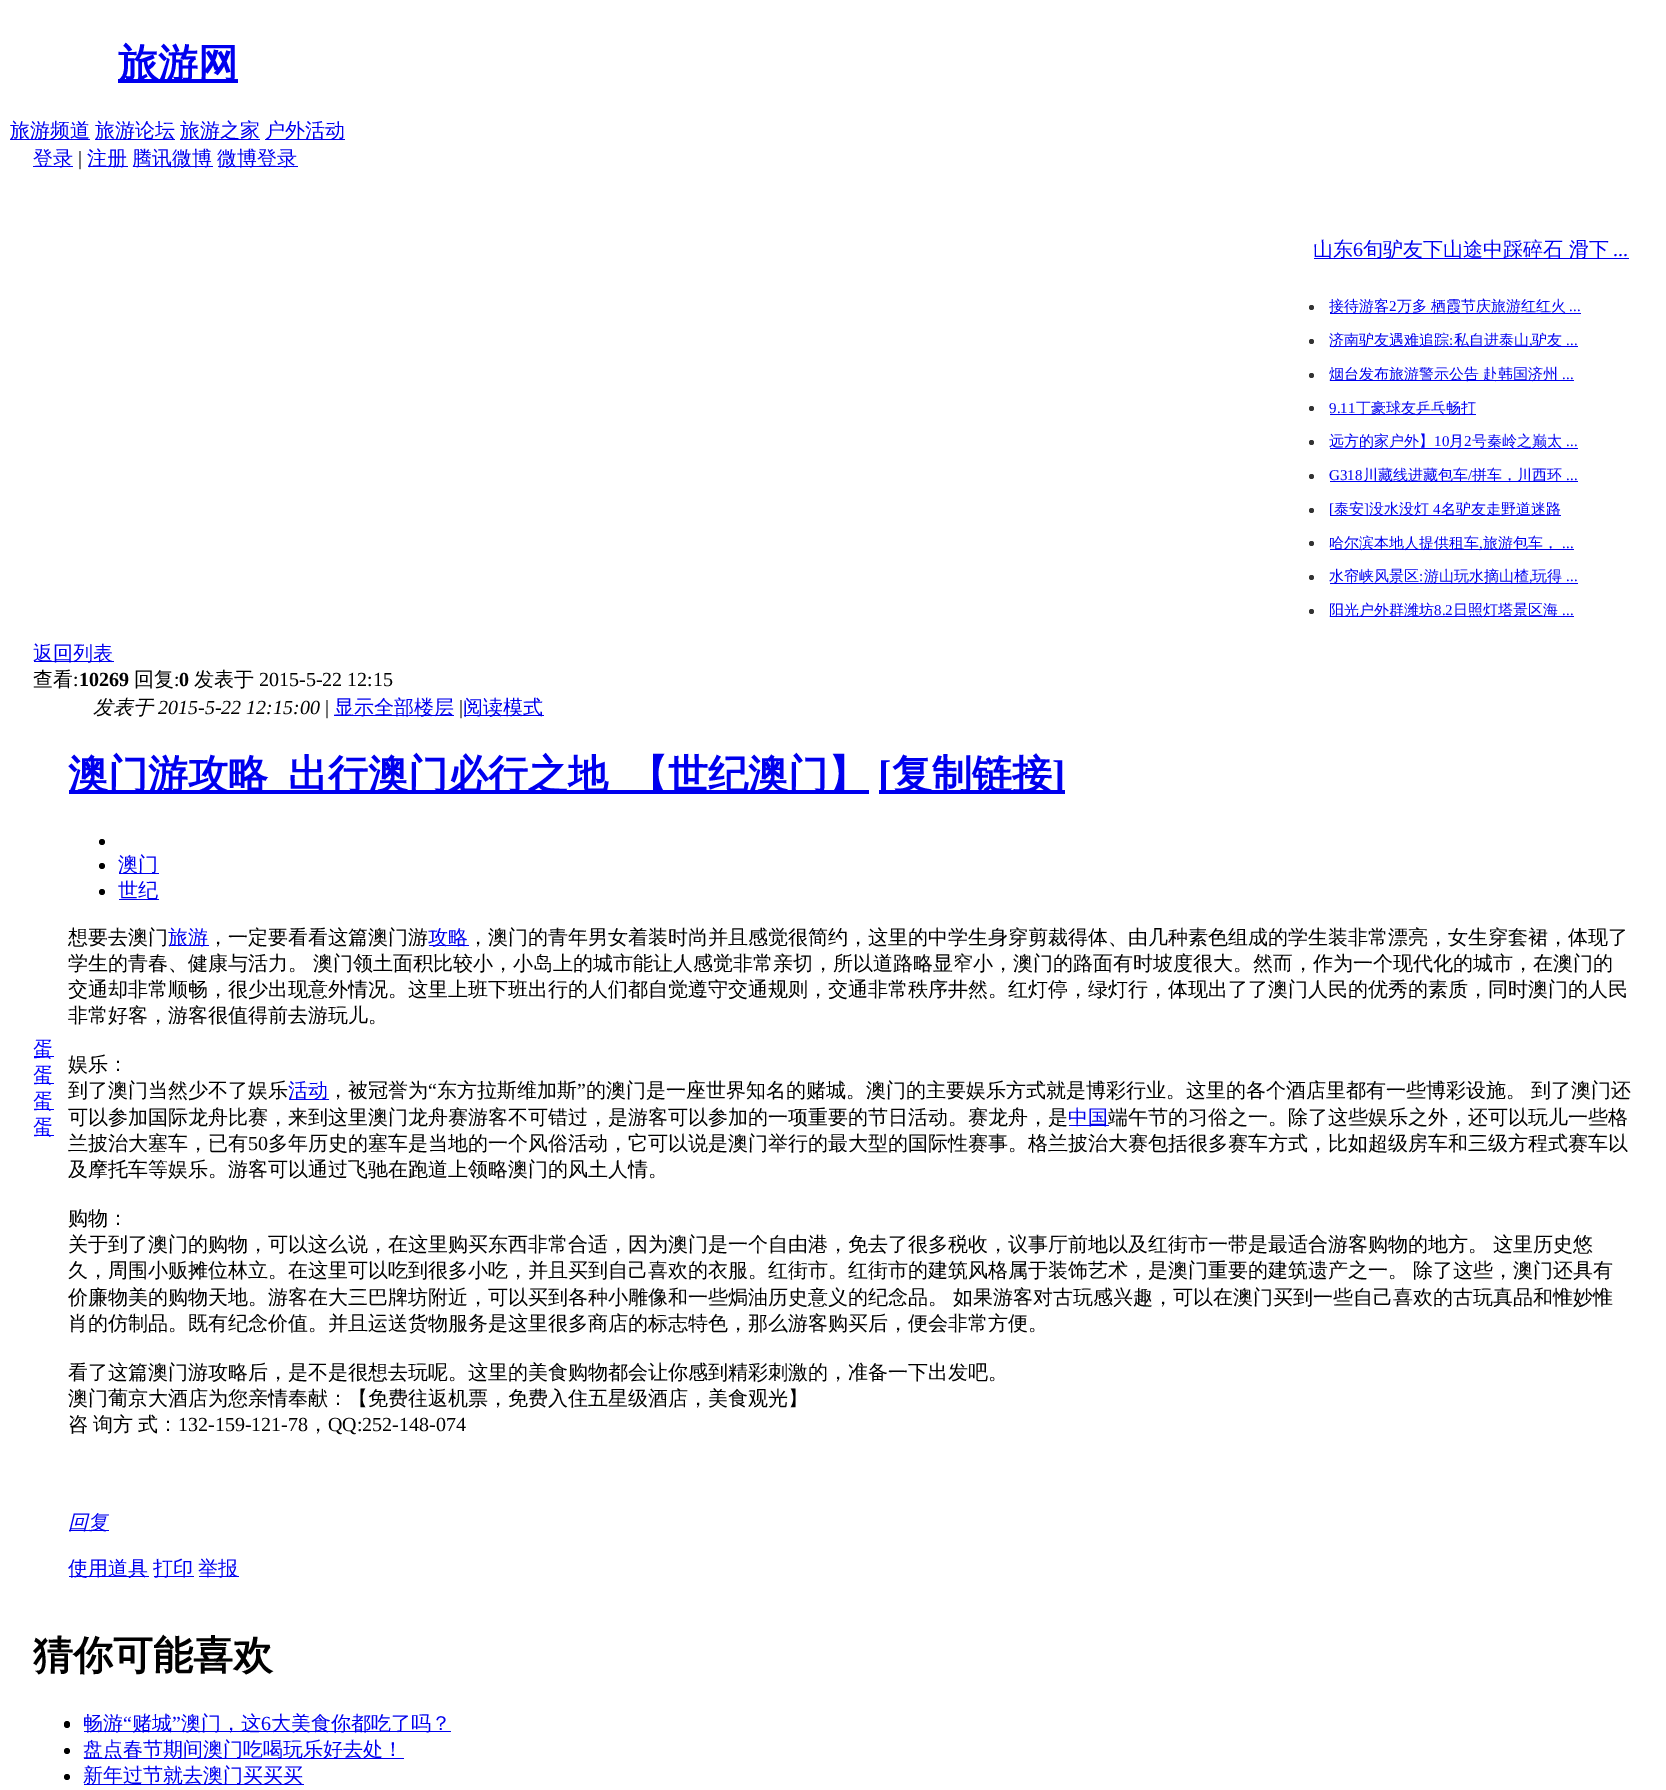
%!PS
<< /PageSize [1666 1790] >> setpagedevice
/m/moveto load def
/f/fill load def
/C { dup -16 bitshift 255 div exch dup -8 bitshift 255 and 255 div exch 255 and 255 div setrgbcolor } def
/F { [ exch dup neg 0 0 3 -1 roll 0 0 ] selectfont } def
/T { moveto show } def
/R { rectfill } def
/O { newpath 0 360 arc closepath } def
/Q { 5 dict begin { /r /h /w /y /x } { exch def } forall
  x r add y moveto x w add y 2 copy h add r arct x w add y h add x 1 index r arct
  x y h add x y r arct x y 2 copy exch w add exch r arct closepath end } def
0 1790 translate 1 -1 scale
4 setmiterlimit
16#FFFFFF C
0 0 1666 1790 R
16#0000EE C
118 79 120 4 R
/WenQuanYiZenHei-Bold 40 F
(旅游网) 118 77 T
10 139 80 1 R
/WenQuanYiZenHei-Medium 20 F
(旅游频道) 10 137 T
95 139 80 1 R
(旅游论坛) 95 137 T
180 139 80 1 R
(旅游之家) 180 137 T
265 139 80 1 R
(户外活动) 265 137 T
33 166 40 1 R
(登录) 33 165 T
/LiberationSerif-Regular 20 F
16#000000 C
(|) 78 165 T
16#0000EE C
88 166 40 1 R
/WenQuanYiZenHei-Medium 20 F
(注册) 87 165 T
133 166 80 1 R
(腾讯微博) 132 165 T
218 166 80 1 R
(微博登录) 217 165 T
1314 258 315 1 R
(山东) 1313 256 T
/LiberationSerif-Regular 20 F
(6) 1353 256 T
/WenQuanYiZenHei-Medium 20 F
(旬驴友下山途中踩碎石 滑下) 1363 256 T
/LiberationSerif-Regular 20 F
(...) 1613 256 T
16#333333 C
1311.5 307.5 2.5 O f
16#0000EE C
1330 313 251 1 R
/WenQuanYiZenHei-Medium 15 F
(接待游客) 1329 311 T
/LiberationSerif-Regular 15 F
(2) 1389 311 T
/WenQuanYiZenHei-Medium 15 F
(万多 栖霞节庆旅游红红火) 1397 311 T
/LiberationSerif-Regular 15 F
(...) 1569 311 T
16#333333 C
1311.5 341.5 2.5 O f
16#0000EE C
1330 346 248 1 R
/WenQuanYiZenHei-Medium 15 F
(济南驴友遇难追踪) 1329 345 T
/LiberationSerif-Regular 15 F
(:) 1449 345 T
/WenQuanYiZenHei-Medium 15 F
(私自进泰山) 1454 345 T
(驴友) 1532 345 T
/LiberationSerif-Regular 15 F
(,) 1529 345 T
(...) 1566 345 T
16#333333 C
1311.5 375.5 2.5 O f
16#0000EE C
1330 380 244 1 R
/WenQuanYiZenHei-Medium 15 F
(烟台发布旅游警示公告 赴韩国济州) 1329 379 T
/LiberationSerif-Regular 15 F
(...) 1562 379 T
16#333333 C
1311.5 408.5 2.5 O f
16#0000EE C
(9.11) 1329 413 T
1330 414 146 1 R
/WenQuanYiZenHei-Medium 15 F
(丁豪球友乒乓畅打) 1356 413 T
16#333333 C
1311.5 442.5 2.5 O f
16#0000EE C
1330 448 248 1 R
(远方的家户外】) 1329 446 T
/LiberationSerif-Regular 15 F
(10) 1434 446 T
/WenQuanYiZenHei-Medium 15 F
(月) 1449 446 T
/LiberationSerif-Regular 15 F
(2) 1464 446 T
/WenQuanYiZenHei-Medium 15 F
(号秦岭之巅太) 1472 446 T
/LiberationSerif-Regular 15 F
(...) 1566 446 T
16#333333 C
1311.5 476.5 2.5 O f
16#0000EE C
(G318) 1329 480 T
1330 481 248 1 R
/WenQuanYiZenHei-Medium 15 F
(川藏线进藏包车) 1363 480 T
/LiberationSerif-Regular 15 F
(/) 1468 480 T
/WenQuanYiZenHei-Medium 15 F
(拼车，川西环) 1472 480 T
/LiberationSerif-Regular 15 F
(...) 1566 480 T
16#333333 C
1311.5 510.5 2.5 O f
16#0000EE C
1330 515 231 1 R
([) 1329 514 T
/WenQuanYiZenHei-Medium 15 F
(泰安) 1334 514 T
/LiberationSerif-Regular 15 F
(]) 1364 514 T
/WenQuanYiZenHei-Medium 15 F
(没水没灯) 1369 514 T
/LiberationSerif-Regular 15 F
(4) 1433 514 T
/WenQuanYiZenHei-Medium 15 F
(名驴友走野道迷路) 1441 514 T
16#333333 C
1311.5 543.5 2.5 O f
16#0000EE C
1330 549 244 1 R
(哈尔滨本地人提供租车) 1329 548 T
(旅游包车，) 1483 548 T
/LiberationSerif-Regular 15 F
(,) 1479 548 T
(...) 1562 548 T
16#333333 C
1311.5 577.5 2.5 O f
/WenQuanYiZenHei-Medium 15 F
16#0000EE C
(水帘峡风景区) 1329 581 T
/LiberationSerif-Regular 15 F
(:) 1419 581 T
1330 583 248 1 R
/WenQuanYiZenHei-Medium 15 F
(游山玩水摘山楂) 1424 581 T
(玩得) 1532 581 T
/LiberationSerif-Regular 15 F
(,) 1529 581 T
(...) 1566 581 T
16#333333 C
1311.5 611.5 2.5 O f
16#0000EE C
1330 616 244 1 R
/WenQuanYiZenHei-Medium 15 F
(阳光户外群潍坊) 1329 615 T
/LiberationSerif-Regular 15 F
(8.2) 1434 615 T
/WenQuanYiZenHei-Medium 15 F
(日照灯塔景区海) 1453 615 T
/LiberationSerif-Regular 15 F
(...) 1562 615 T
34 661 80 1 R
/WenQuanYiZenHei-Medium 20 F
(返回列表) 33 660 T
16#000000 C
(查看) 33 686 T
/LiberationSerif-Regular 20 F
(:) 73 686 T
/LiberationSerif-Bold 20 F
(10269) 79 686 T
/WenQuanYiZenHei-Medium 20 F
(回复) 134 686 T
/LiberationSerif-Regular 20 F
(:) 174 686 T
/LiberationSerif-Bold 20 F
(0) 179 686 T
/WenQuanYiZenHei-Medium 20 F
(发表于) 194 686 T
/LiberationSerif-Regular 20 F
(2015-5-22 12:15) 259 686 T
16#0000FF C
34 1056 20 1 R
/WenQuanYiZenHei-Medium 20 F
(蛋) 33 1056 T
34 1083 20 1 R
(蛋) 33 1082 T
34 1109 20 1 R
(蛋) 33 1108 T
34 1135 20 1 R
(蛋) 33 1134 T
/WenQuanYiZenHei-MediumItalic 20 F
16#000000 C
(发表于) 93 714 T
/LiberationSerif-Italic 20 F
(2015-5-22 12:15:00) 158 714 T
/LiberationSerif-Regular 20 F
(|) 325 714 T
16#0000EE C
334 715 120 1 R
/WenQuanYiZenHei-Medium 20 F
(显示全部楼层) 334 714 T
/LiberationSerif-Regular 20 F
16#000000 C
(|) 459 714 T
16#0000EE C
464 715 80 1 R
/WenQuanYiZenHei-Medium 20 F
(阅读模式) 463 714 T
69 790 800 4 R
/WenQuanYiZenHei-Bold 40 F
(澳门游攻略) 68 788 T
(出行澳门必行之地) 288 788 T
(【世纪澳门】) 628 788 T
879 790 186 4 R
/LiberationSerif-Bold 40 F
([) 878 788 T
/WenQuanYiZenHei-Bold 40 F
(复制链接) 892 788 T
/LiberationSerif-Bold 40 F
(]) 1052 788 T
16#000000 C
102 842 3 O f
102 866 3 O f
16#0000EE C
119 873 40 1 R
/WenQuanYiZenHei-Medium 20 F
(澳门) 118 871 T
16#000000 C
102 892 3 O f
16#0000EE C
119 899 40 1 R
(世纪) 118 897 T
16#000000 C
(想要去澳门) 68 944 T
16#0000EE C
169 945 40 1 R
(旅游) 168 944 T
16#000000 C
(，一定要看看这篇澳门游) 208 944 T
16#0000EE C
429 945 40 1 R
(攻略) 428 944 T
16#000000 C
(，澳门的青年男女着装时尚并且感觉很简约，这里的中学生身穿剪裁得体、由几种素色组成的学生装非常漂亮，女生穿套裙，体现了) 468 944 T
68 970 m -1 0 32 (学生的青春、健康与活力。 澳门领土面积比较小，小岛上的城市能让人感觉非常亲切，所以道路略显窄小，澳门的路面有时坡度很大。然而，作为一个现代化的城市，在澳门的) widthshow
(交通却非常顺畅，很少出现意外情况。这里上班下班出行的人们都自觉遵守交通规则，交通非常秩序井然。红灯停，绿灯行，体现出了了澳门人民的优秀的素质，同时澳门的人民) 68 996 T
(非常好客，游客很值得前去游玩儿。) 68 1022 T
(娱乐：) 68 1071 T
(到了澳门当然少不了娱乐) 68 1097 T
16#0000EE C
289 1099 40 1 R
(活动) 288 1097 T
16#000000 C
(，被冠誉为) 328 1097 T
/LiberationSerif-Regular 20 F
(“) 428 1097 T
/WenQuanYiZenHei-Medium 20 F
(东方拉斯维加斯) 437 1097 T
/LiberationSerif-Regular 20 F
(”) 577 1097 T
/WenQuanYiZenHei-Medium 20 F
586 1097 m -1 0 32 (的澳门是一座世界知名的赌城。澳门的主要娱乐方式就是博彩行业。这里的各个酒店里都有一些博彩设施。 到了澳门还) widthshow
(可以参加国际龙舟比赛，来到这里澳门龙舟赛游客不可错过，是游客可以参加的一项重要的节日活动。赛龙舟，是) 68 1124 T
16#0000EE C
1069 1125 40 1 R
(中国) 1068 1124 T
16#000000 C
(端午节的习俗之一。除了这些娱乐之外，还可以玩儿一些格) 1108 1124 T
(兰披治大塞车，已有) 68 1150 T
/LiberationSerif-Regular 20 F
(50) 248 1150 T
/WenQuanYiZenHei-Medium 20 F
(多年历史的塞车是当地的一个风俗活动，它可以说是澳门举行的最大型的国际性赛事。格兰披治大赛包括很多赛车方式，比如超级房车和三级方程式赛车以) 268 1150 T
(及摩托车等娱乐。游客可以通过飞驰在跑道上领略澳门的风土人情。) 68 1176 T
(购物：) 68 1225 T
68 1251 m -1 0 32 (关于到了澳门的购物，可以这么说，在这里购买东西非常合适，因为澳门是一个自由港，免去了很多税收，议事厅前地以及红街市一带是最适合游客购物的地方。 这里历史悠) widthshow
68 1277 m -1 0 32 (久，周围小贩摊位林立。在这里可以吃到很多小吃，并且买到自己喜欢的衣服。红街市。红街市的建筑风格属于装饰艺术，是澳门重要的建筑遗产之一。 除了这些，澳门还具有) widthshow
68 1304 m -1 0 32 (价廉物美的购物天地。游客在大三巴牌坊附近，可以买到各种小雕像和一些焗油历史意义的纪念品。 如果游客对古玩感兴趣，可以在澳门买到一些自己喜欢的古玩真品和惟妙惟) widthshow
(肖的仿制品。既有纪念价值。并且运送货物服务是这里很多商店的标志特色，那么游客购买后，便会非常方便。) 68 1330 T
(看了这篇澳门游攻略后，是不是很想去玩呢。这里的美食购物都会让你感到精彩刺激的，准备一下出发吧。) 68 1379 T
(澳门葡京大酒店为您亲情奉献：【免费往返机票，免费入住五星级酒店，美食观光】) 68 1405 T
68 1431 m -1 0 32 (咨 询方 式：) widthshow
/LiberationSerif-Regular 20 F
(132-159-121-78) 178 1431 T
/WenQuanYiZenHei-Medium 20 F
(，) 308 1431 T
/LiberationSerif-Regular 20 F
(QQ:252-148-074) 328 1431 T
16#0000EE C
69 1530 40 1 R
/WenQuanYiZenHei-MediumItalic 20 F
(回复) 68 1529 T
69 1576 80 1 R
/WenQuanYiZenHei-Medium 20 F
(使用道具) 68 1575 T
154 1576 40 1 R
(打印) 153 1575 T
199 1576 40 1 R
(举报) 198 1575 T
/WenQuanYiZenHei-Bold 40 F
16#000000 C
(猜你可能喜欢) 33 1669 T
64 1721 6 7 3 Q f
16#0000EE C
84 1731 367 1 R
/WenQuanYiZenHei-Medium 20 F
(畅游) 83 1730 T
/LiberationSerif-Regular 20 F
(“) 123 1730 T
/WenQuanYiZenHei-Medium 20 F
(赌城) 132 1730 T
/LiberationSerif-Regular 20 F
(”) 172 1730 T
/WenQuanYiZenHei-Medium 20 F
(澳门，这) 181 1730 T
/LiberationSerif-Regular 20 F
(6) 261 1730 T
/WenQuanYiZenHei-Medium 20 F
(大美食你都吃了吗？) 271 1730 T
16#000000 C
67 1751 3 O f
16#0000EE C
84 1758 320 1 R
(盘点春节期间澳门吃喝玩乐好去处！) 83 1756 T
16#000000 C
67 1777 3 O f
16#0000EE C
84 1784 220 1 R
(新年过节就去澳门买买买) 83 1782 T
showpage
